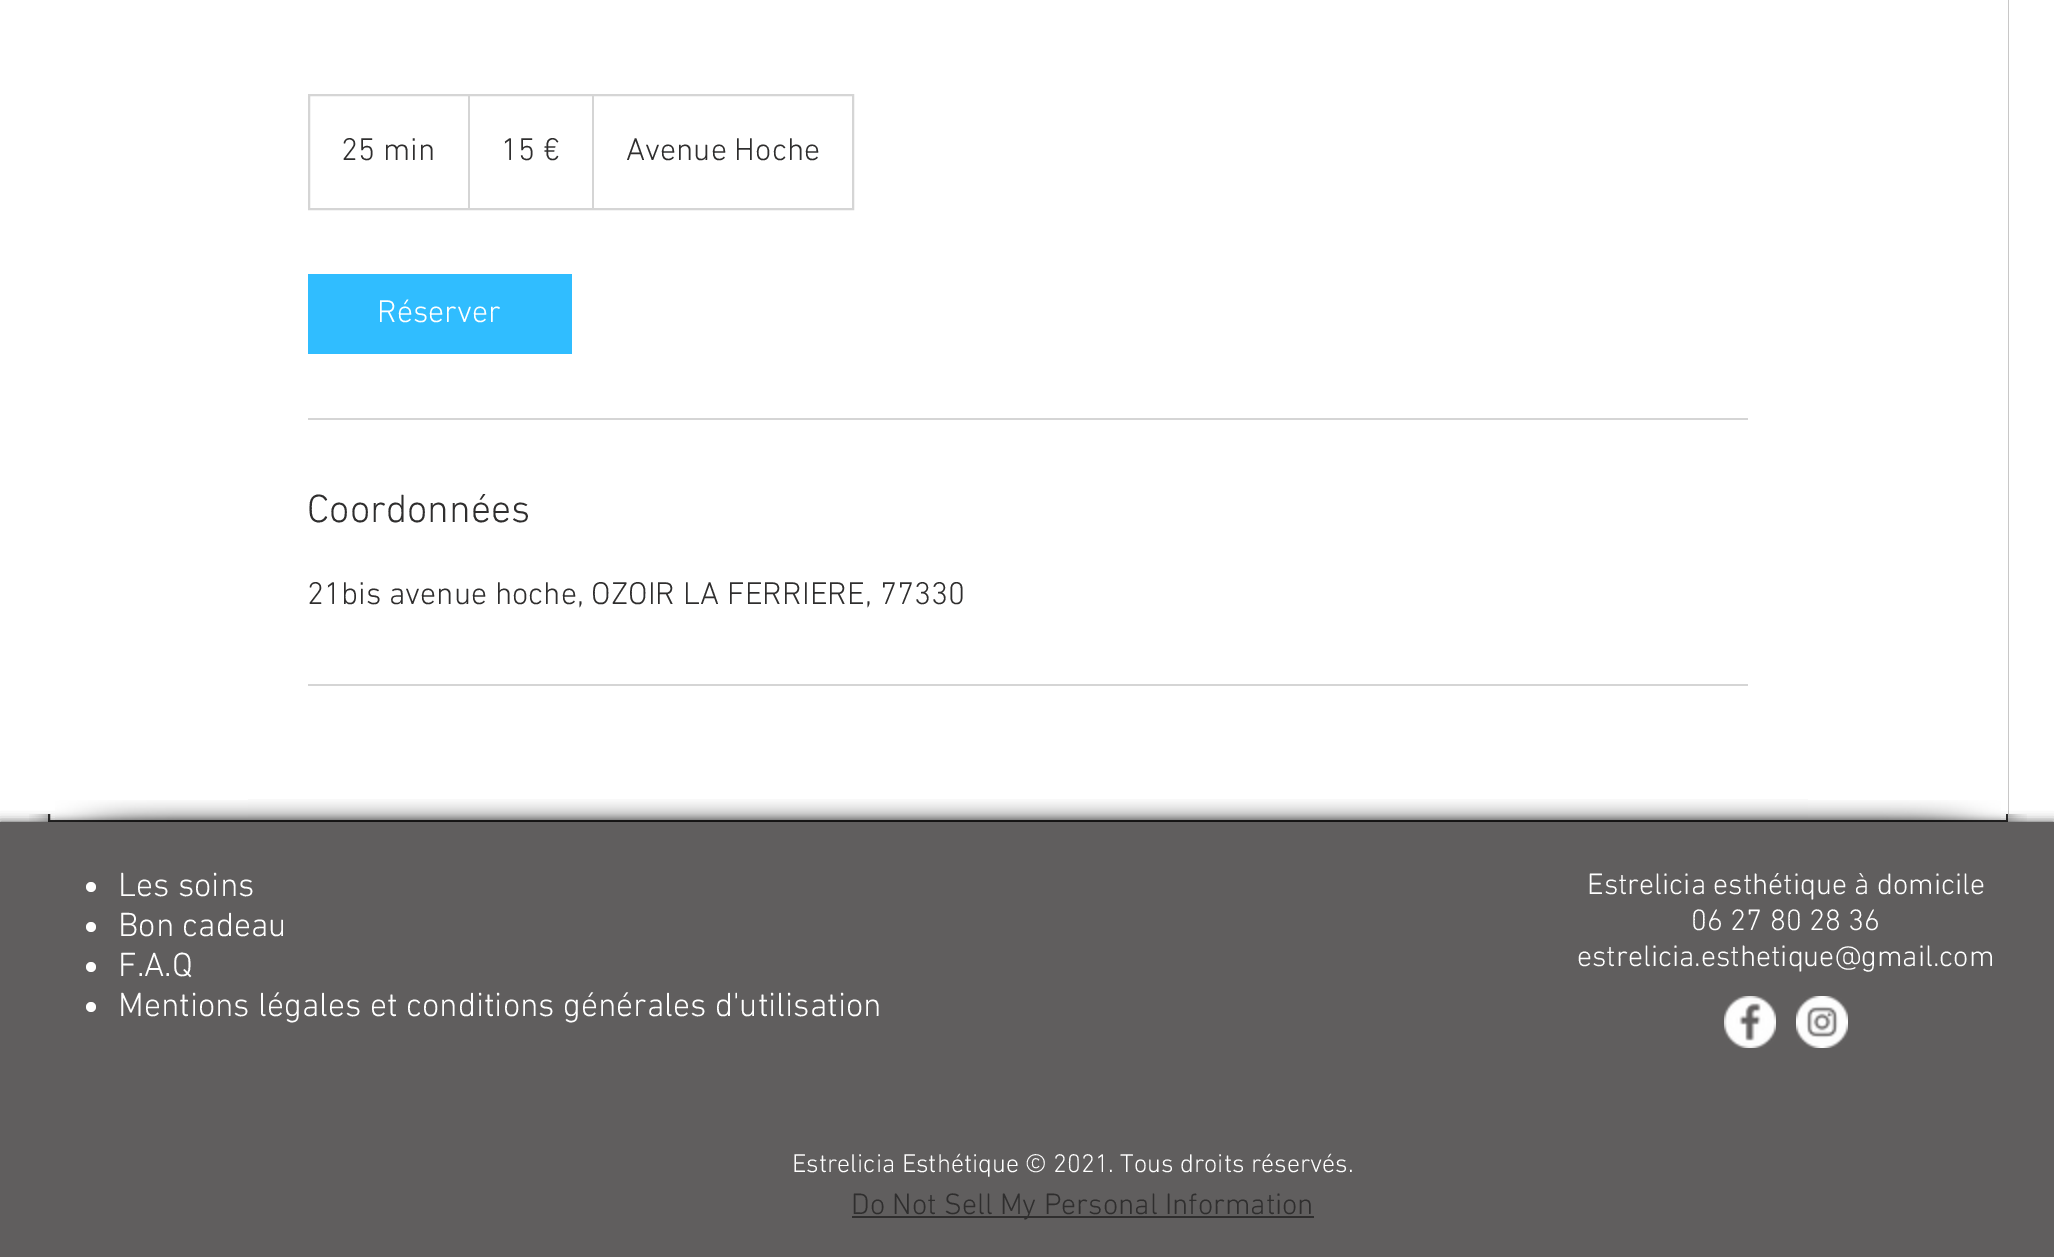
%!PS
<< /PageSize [2054 1257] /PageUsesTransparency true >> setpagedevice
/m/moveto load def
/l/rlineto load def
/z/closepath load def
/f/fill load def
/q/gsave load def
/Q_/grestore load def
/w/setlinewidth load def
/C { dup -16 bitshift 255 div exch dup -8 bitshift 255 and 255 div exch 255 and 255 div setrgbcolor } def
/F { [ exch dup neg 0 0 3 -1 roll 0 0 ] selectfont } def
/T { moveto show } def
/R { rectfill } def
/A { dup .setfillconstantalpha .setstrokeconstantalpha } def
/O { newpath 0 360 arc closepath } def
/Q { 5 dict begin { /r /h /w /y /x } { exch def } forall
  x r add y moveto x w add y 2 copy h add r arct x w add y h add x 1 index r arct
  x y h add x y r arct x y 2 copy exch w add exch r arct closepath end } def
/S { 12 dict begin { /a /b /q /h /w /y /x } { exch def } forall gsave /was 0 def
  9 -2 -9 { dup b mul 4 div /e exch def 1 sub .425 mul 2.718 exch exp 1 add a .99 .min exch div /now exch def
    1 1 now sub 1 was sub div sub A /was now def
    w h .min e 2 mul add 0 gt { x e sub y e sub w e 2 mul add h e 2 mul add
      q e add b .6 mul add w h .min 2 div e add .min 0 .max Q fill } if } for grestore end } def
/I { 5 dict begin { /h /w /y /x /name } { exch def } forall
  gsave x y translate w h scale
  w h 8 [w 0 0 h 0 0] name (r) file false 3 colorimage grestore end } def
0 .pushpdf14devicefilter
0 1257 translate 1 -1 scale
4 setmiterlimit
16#FFFFFF C
0 0 2054 1257 R
(1.rgb) 29 814 19 8 I
16#2F2E2E C
2 w
49 -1 1958 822 rectstroke
(2.rgb) 2008 814 19 8 I
16#FFFFFF C
48 0 1960 814 R
16#D5D5D5 C
309 95 544 114 rectstroke
/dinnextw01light-Light 32 F
16#2F2E2E C
(25 min) 341 160 T
q
310 96 542 112 rectclip
16#D5D5D5 C
468 208 m 0 -114 l 2 2 l 0 112 l z f
Q_
(15 €) 501 160 T
q
310 96 542 112 rectclip
16#D5D5D5 C
592 208 m 0 -114 l 2 2 l 0 112 l z f
Q_
(Avenue Hoche) 626 160 T
16#30BDFF C
308 274 264 80 R
16#FFFFFF C
(Réserver) 377 322 T
16#D5D5D5 C
308 418 1440 2 R
/dinnextw01light-Light 40 F
16#2F2E2E C
(Coordonnées) 307 522 T
/dinnextw01light-Light 32 F
(21bis avenue hoche, OZOIR LA FERRIERE, 77330) 307 604 T
16#D5D5D5 C
308 684 1440 2 R
16#000000 C
0 822 2054 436 0 5 .7 S
16#605E5E C
0 822 2054 435 R
(3.rgb) 55 800 193 22 I
(4.rgb) 248 799 1560 23 I
(5.rgb) 1808 800 193 22 I
16#FFFFFF C
91 887 5 O f
/dinnextw01light-Light 34 F
(Les soins) 118 896 T
91 927 5 O f
(Bon cadeau) 118 936 T
91 967 5 O f
(F.A.Q) 118 976 T
91 1007 5 O f
(Mentions légales et conditions générales d'utilisation) 118 1016 T
/dinnextw01light-Light 30 F
(Estrelicia esthétique à domicile) 1587 894 T
(06 27 80 28 36) 1691 930 T
(estrelicia.esthetique@gmail.com) 1577 966 T
(6.rgb) 1724 996 52 52 I
(7.rgb) 1796 996 52 52 I
/dinnextw01light-Light 26 F
(Estrelicia Esthétique © 2021. Tous droits réservés.) 792 1172 T
16#2F2E2E C
852 1216 462 2 R
/dinnextw01light-Light 30 F
(Do Not Sell My Personal Information) 851 1214 T
.poppdf14devicefilter showpage
